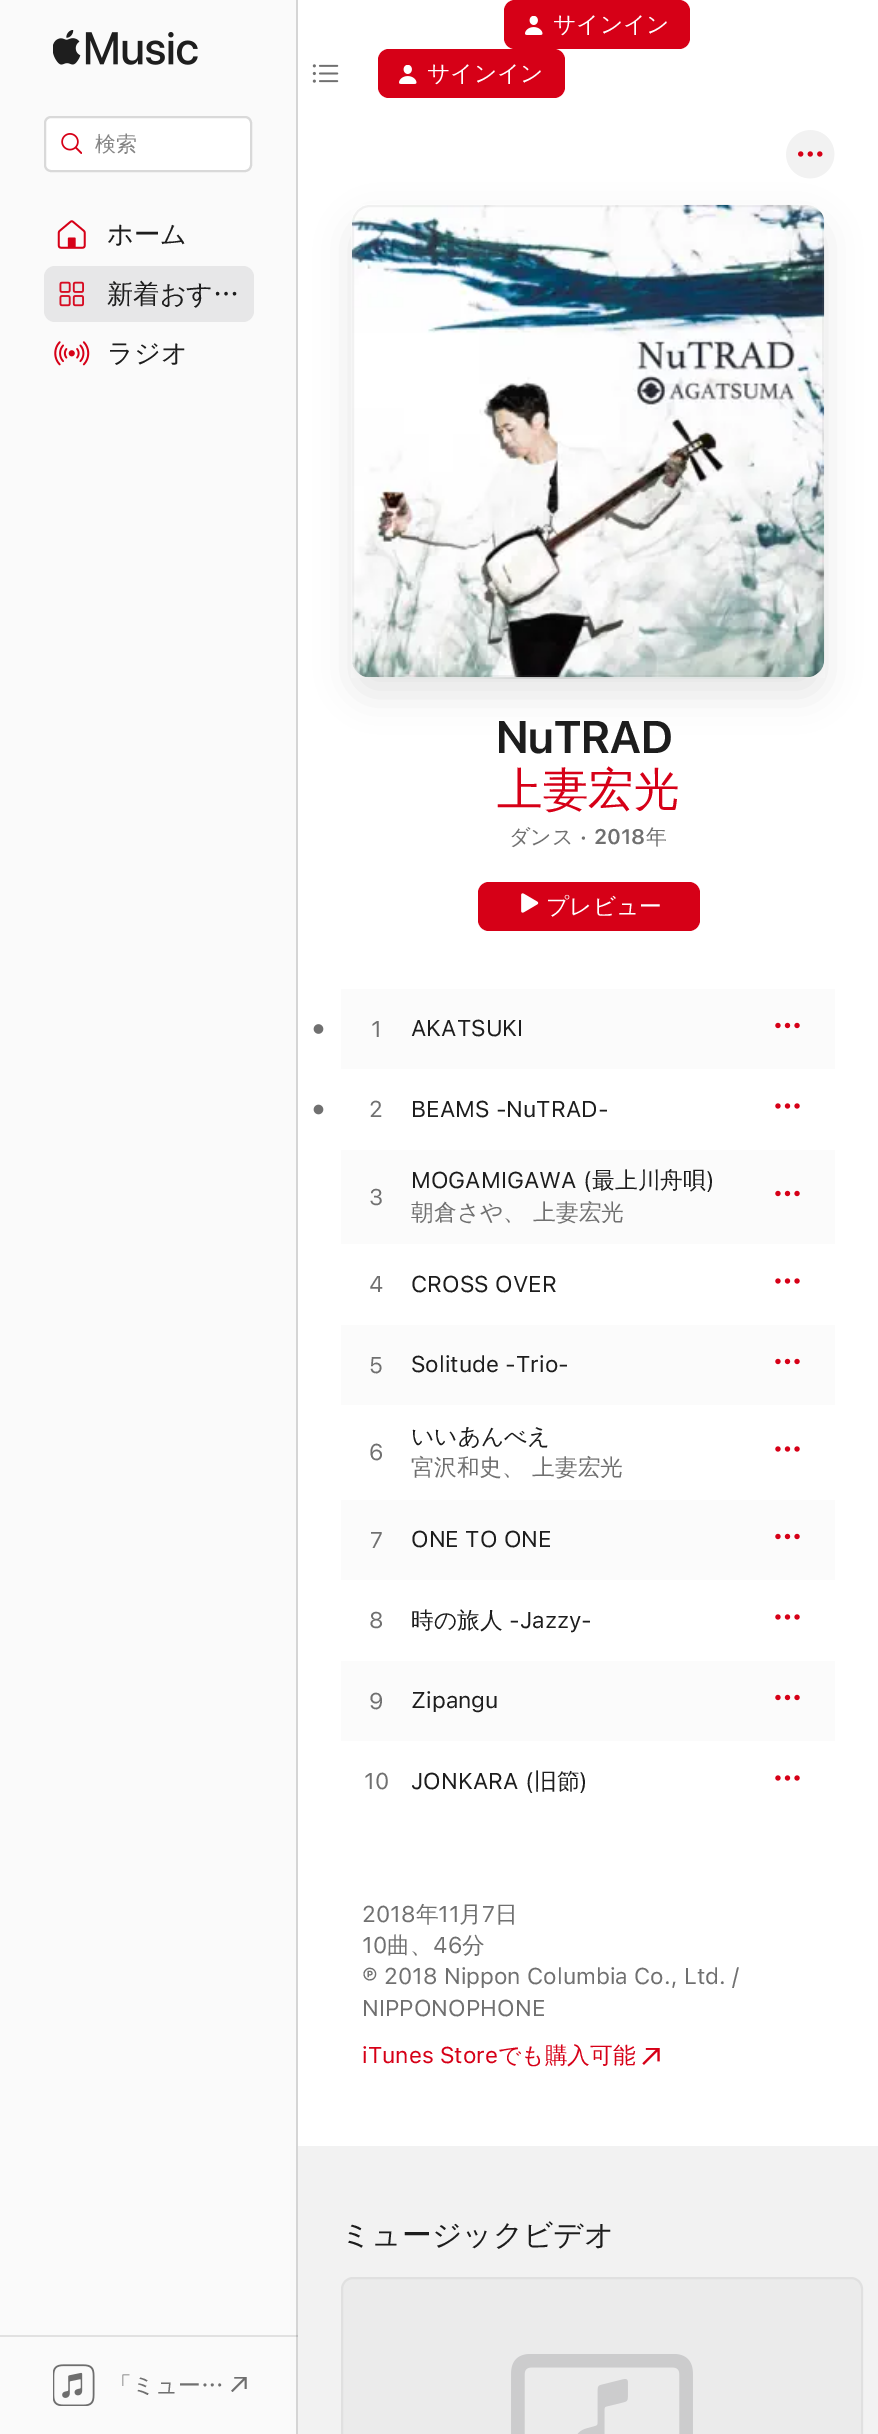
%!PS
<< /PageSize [878 2434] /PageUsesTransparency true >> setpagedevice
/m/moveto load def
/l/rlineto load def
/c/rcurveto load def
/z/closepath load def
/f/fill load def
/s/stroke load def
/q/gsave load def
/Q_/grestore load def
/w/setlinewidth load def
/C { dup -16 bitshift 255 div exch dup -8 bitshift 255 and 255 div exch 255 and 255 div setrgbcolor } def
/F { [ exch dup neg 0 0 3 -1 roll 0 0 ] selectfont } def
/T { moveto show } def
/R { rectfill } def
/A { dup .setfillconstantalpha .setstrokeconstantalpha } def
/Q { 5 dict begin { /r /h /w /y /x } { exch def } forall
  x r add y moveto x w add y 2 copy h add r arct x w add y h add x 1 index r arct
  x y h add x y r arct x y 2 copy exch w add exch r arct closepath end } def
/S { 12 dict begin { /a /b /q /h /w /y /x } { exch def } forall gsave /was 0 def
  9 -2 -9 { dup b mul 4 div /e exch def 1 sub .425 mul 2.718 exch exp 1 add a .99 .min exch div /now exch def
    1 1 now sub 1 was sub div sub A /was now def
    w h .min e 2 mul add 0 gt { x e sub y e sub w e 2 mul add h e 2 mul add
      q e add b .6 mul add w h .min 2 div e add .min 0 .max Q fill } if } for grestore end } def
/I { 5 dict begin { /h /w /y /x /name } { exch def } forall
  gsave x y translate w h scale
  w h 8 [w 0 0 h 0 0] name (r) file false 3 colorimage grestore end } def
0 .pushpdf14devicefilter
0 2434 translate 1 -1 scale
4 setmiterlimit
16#FFFFFF C
0 0 878 2434 R
16#D60017 C
504 0 186 49 11 Q f
(1.rgb) 525 16 18 19 I
/WenQuanYiZenHei-Medium 22.75 F
16#FFFFFF C
(サインイン) 553 32 T
(2.rgb) 312 64 27 19 I
16#D60017 C
378 49 187 49 11 Q f
(1.rgb) 399 65 18 19 I
16#FFFFFF C
(サインイン) 427 81 T
16#FAFAFA C
0 0 296 2434 R
16#E1E1E1 C
0 2335 298 2 R
16#D5D5D5 C
296 0 2 2434 R
16#C0C0C0 C
296 2335 2 2 R
(3.rgb) 53 30 145 35 I
16#FFFFFF C
45 117 206 54 6 Q q f Q_
16#D9D9D9 C
2 w
s
(4.rgb) 61 133 21 21 I
/WenQuanYiZenHei-Medium 21 F
16#858585 C
(検索) 95 151 T
(5.rgb) 57 220 29 29 I
/WenQuanYiZenHei-Medium 26.25 F
16#1D1D1D C
(ホーム) 107 243 T
16#E7E7E8 C
44 266 210 56 11 Q f
(6.rgb) 59 281 25 26 I
16#1D1D1D C
(新着おす…) 107 303 T
(7.rgb) 54 341 36 25 I
(ラジオ) 107 362 T
(8.rgb) 53 2364 42 42 I
/WenQuanYiZenHei-Medium 22.75 F
16#707070 C
(「ミュー…) 109 2393 T
(9.rgb) 231 2377 16 15 I
(10.rgb) 786 130 49 49 I
16#000000 C
352 222 472 473 18 17.5 .1 S
(12.rgb) 378 677 420 2 I
(11.rgb) 351 204 474 474 I
0.1 A
16#808080 C
353 206 470 470 17 Q s
/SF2-SemiBold 45.5 F
1 A
16#1D1D1D C
(NuTRAD) 496 753 T
/WenQuanYiZenHei-Medium 45.5 F
16#D60017 C
(上妻宏光) 497 805 T
/WenQuanYiZenHei-Medium 21 F
16#707070 C
(ダンス) 509 844 T
/SF-SemiBold 21 F
(· 2018) 580 844 T
/WenQuanYiZenHei-Medium 21 F
(年) 646 844 T
16#D60017 C
478 882 222 49 11 Q f
(13.rgb) 521 893 18 20 I
/WenQuanYiZenHei-Medium 22.75 F
16#FFFFFF C
(プレビュー) 546 914 T
16#FBFBFB C
341 989 494 80 R
(14.rgb) 313 1024 11 10 I
/SF-Regular 22.75 F
16#707070 C
(1) 371 1037 T
16#1D1D1D C
(AKATSUKI) 411 1036 T
(15.rgb) 775 1022 25 7 I
(16.rgb) 313 1104 11 11 I
16#707070 C
(2) 369 1117 T
16#1D1D1D C
(BEAMS -NuTRAD-) 411 1117 T
(17.rgb) 775 1103 25 6 I
16#FBFBFB C
341 1150 494 94 R
16#707070 C
(3) 369 1205 T
16#1D1D1D C
(MOGAMIGAWA \() 411 1188 T
/WenQuanYiZenHei-Medium 22.75 F
(最上川舟唄) 592 1188 T
/SF-Regular 22.75 F
(\)) 706 1188 T
/WenQuanYiZenHei-Medium 22.75 F
16#707070 C
(朝倉さや、) 411 1220 T
(上妻宏光) 533 1220 T
(15.rgb) 775 1190 25 7 I
/SF-Regular 22.75 F
(4) 369 1292 T
16#1D1D1D C
(CROSS OVER) 411 1292 T
(17.rgb) 775 1278 25 6 I
16#FBFBFB C
341 1325 494 80 R
16#707070 C
(5) 369 1373 T
16#1D1D1D C
(Solitude -Trio-) 411 1372 T
(15.rgb) 775 1358 25 7 I
16#707070 C
(6) 369 1460 T
/WenQuanYiZenHei-Medium 22.75 F
16#1D1D1D C
(いいあんべえ) 411 1444 T
16#707070 C
(宮沢和史、) 411 1475 T
(上妻宏光) 532 1475 T
(17.rgb) 775 1446 25 6 I
16#FBFBFB C
341 1500 494 80 R
/SF-Regular 22.75 F
16#707070 C
(7) 370 1548 T
16#1D1D1D C
(ONE TO ONE) 411 1547 T
(15.rgb) 775 1533 25 7 I
16#707070 C
(8) 369 1628 T
/WenQuanYiZenHei-Medium 22.75 F
16#1D1D1D C
(時の旅人) 411 1628 T
/SF-Regular 22.75 F
(-Jazzy-) 509 1628 T
(17.rgb) 775 1614 25 6 I
16#FBFBFB C
341 1661 494 80 R
16#707070 C
(9) 369 1709 T
16#1D1D1D C
(Zipangu) 411 1708 T
(15.rgb) 775 1694 25 7 I
16#707070 C
(10) 364 1789 T
16#1D1D1D C
(JONKARA \() 411 1789 T
/WenQuanYiZenHei-Medium 22.75 F
(旧節) 534 1789 T
/SF-Regular 22.75 F
(\)) 579 1789 T
(17.rgb) 775 1775 25 6 I
16#707070 C
(2018) 362 1922 T
/WenQuanYiZenHei-Medium 22.75 F
(年) 416 1922 T
/SF-Regular 22.75 F
(11) 438 1922 T
/WenQuanYiZenHei-Medium 22.75 F
(月) 459 1922 T
/SF-Regular 22.75 F
(7) 482 1922 T
/WenQuanYiZenHei-Medium 22.75 F
(日) 495 1922 T
/SF-Regular 22.75 F
(10) 362 1953 T
/WenQuanYiZenHei-Medium 22.75 F
(曲、) 387 1953 T
/SF-Regular 22.75 F
(46) 433 1953 T
/WenQuanYiZenHei-Medium 22.75 F
(分) 462 1953 T
/SF-Regular 22.75 F
(℗ 2018 Nippon Columbia Co., Ltd. /) 362 1984 T
(NIPPONOPHONE) 362 2016 T
16#D60017 C
(iTunes Store) 362 2063 T
/WenQuanYiZenHei-Medium 22.75 F
(でも購入可能) 498 2063 T
(18.rgb) 642 2048 18 17 I
16#F2F2F2 C
298 2146 580 288 R
/WenQuanYiZenHei-Medium 29.75 F
16#1D1D1D C
(ミュージックビデオ) 341 2245 T
16#EBEBEB C
353 2277 m 498 0 l 6.5 0 12 5.5 12 12 c 0 145 l -522 0 l 0 -145 l 0 -6.5 5.5 -12 12 -12 c z f
(19.rgb) 511 2354 182 80 I
0.1 A
16#808080 C
342 2278 520 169 11 Q s
.poppdf14devicefilter showpage
